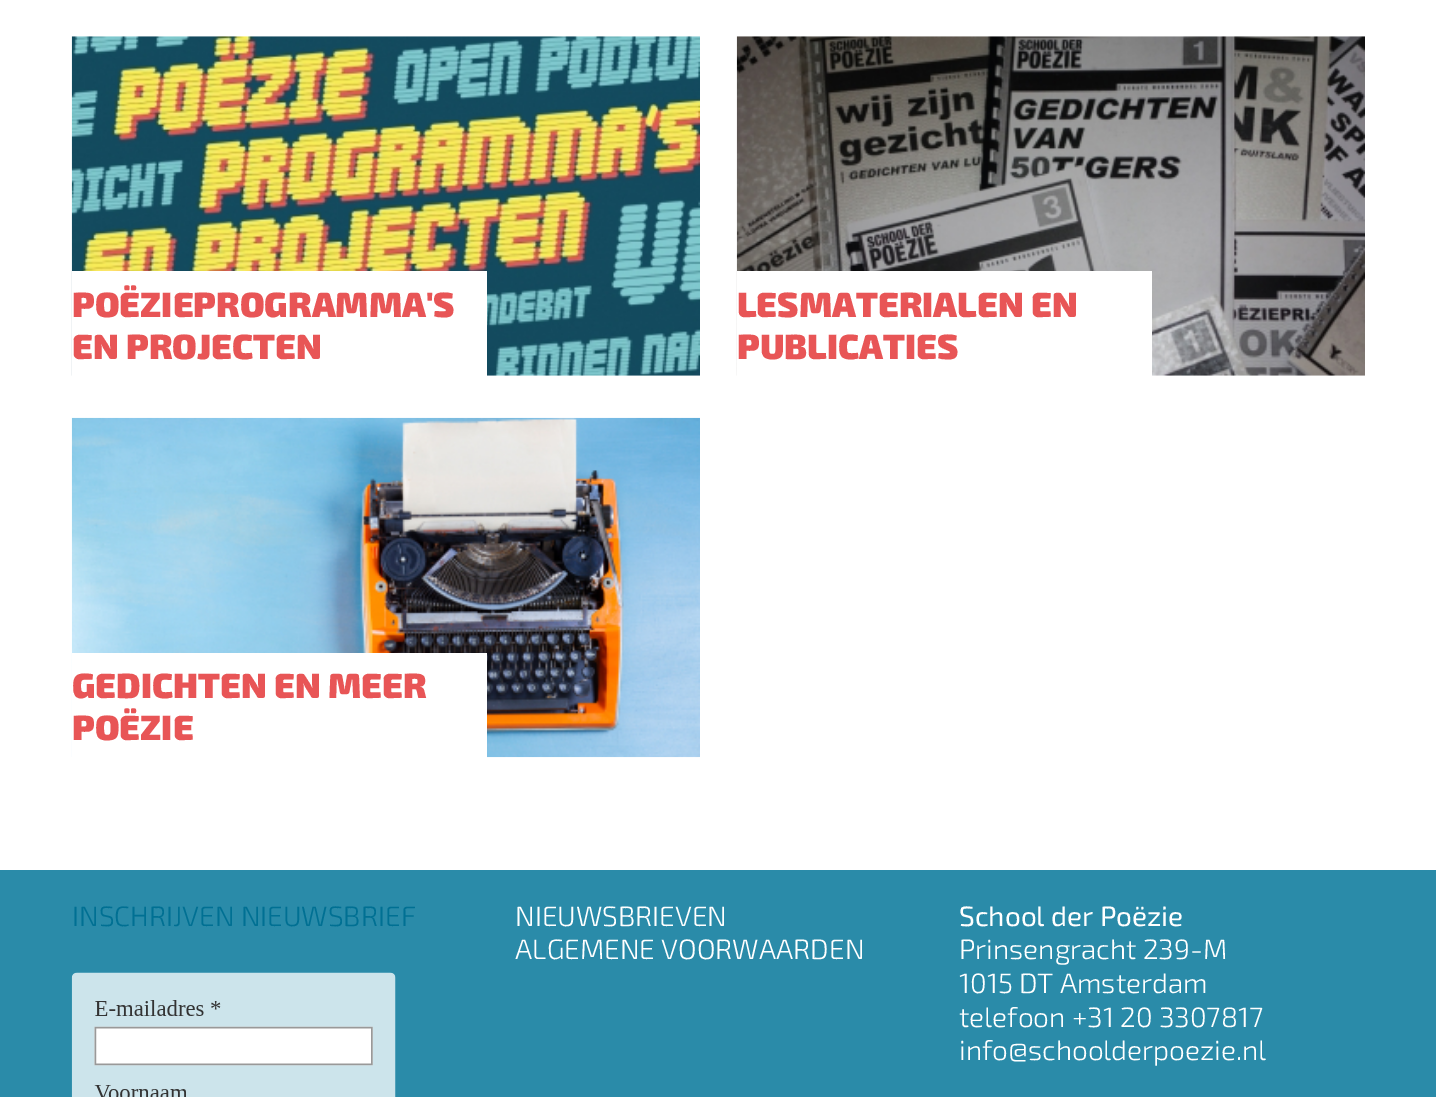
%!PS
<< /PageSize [1436 1097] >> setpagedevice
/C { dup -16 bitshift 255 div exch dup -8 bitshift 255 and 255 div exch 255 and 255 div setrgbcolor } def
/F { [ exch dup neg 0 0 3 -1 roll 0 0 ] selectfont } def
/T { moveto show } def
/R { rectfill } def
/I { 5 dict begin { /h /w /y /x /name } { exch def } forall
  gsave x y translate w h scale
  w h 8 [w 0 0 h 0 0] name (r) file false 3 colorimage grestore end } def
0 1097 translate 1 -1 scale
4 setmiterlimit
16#2A8BA9 C
0 0 1436 1097 R
16#FFFFFF C
0 0 1436 870 R
(1.rgb) 71 36 629 340 I
72 271 415 105 R
/Exo2-Black 35 F
16#E85556 C
(POËZIEPROGRAMMA'S) 72 317 T
(EN PROJECTEN) 72 359 T
(2.rgb) 736 36 629 340 I
16#FFFFFF C
737 271 415 105 R
16#E85556 C
(LESMATERIALEN EN) 737 317 T
(PUBLICATIES) 737 359 T
(3.rgb) 71 417 629 341 I
16#FFFFFF C
72 653 415 105 R
16#E85556 C
(GEDICHTEN EN MEER) 72 698 T
(POËZIE) 72 740 T
/Exo2-Light 28 F
16#007093 C
(INSCHRIJVEN NIEUWSBRIEF) 72 926 T
(4.rgb) 71 972 325 125 I
16#FFFFFF C
(NIEUWSBRIEVEN) 515 926 T
(ALGEMENE VOORWAARDEN) 515 959 T
/Exo2-Regular 28 F
(School der Poëzie) 959 926 T
/Exo2-Light 28 F
(Prinsengracht 239-M) 959 959 T
(1015 DT Amsterdam) 959 993 T
(telefoon +31 20 3307817) 959 1027 T
(info@schoolderpoezie.nl) 959 1060 T
showpage
